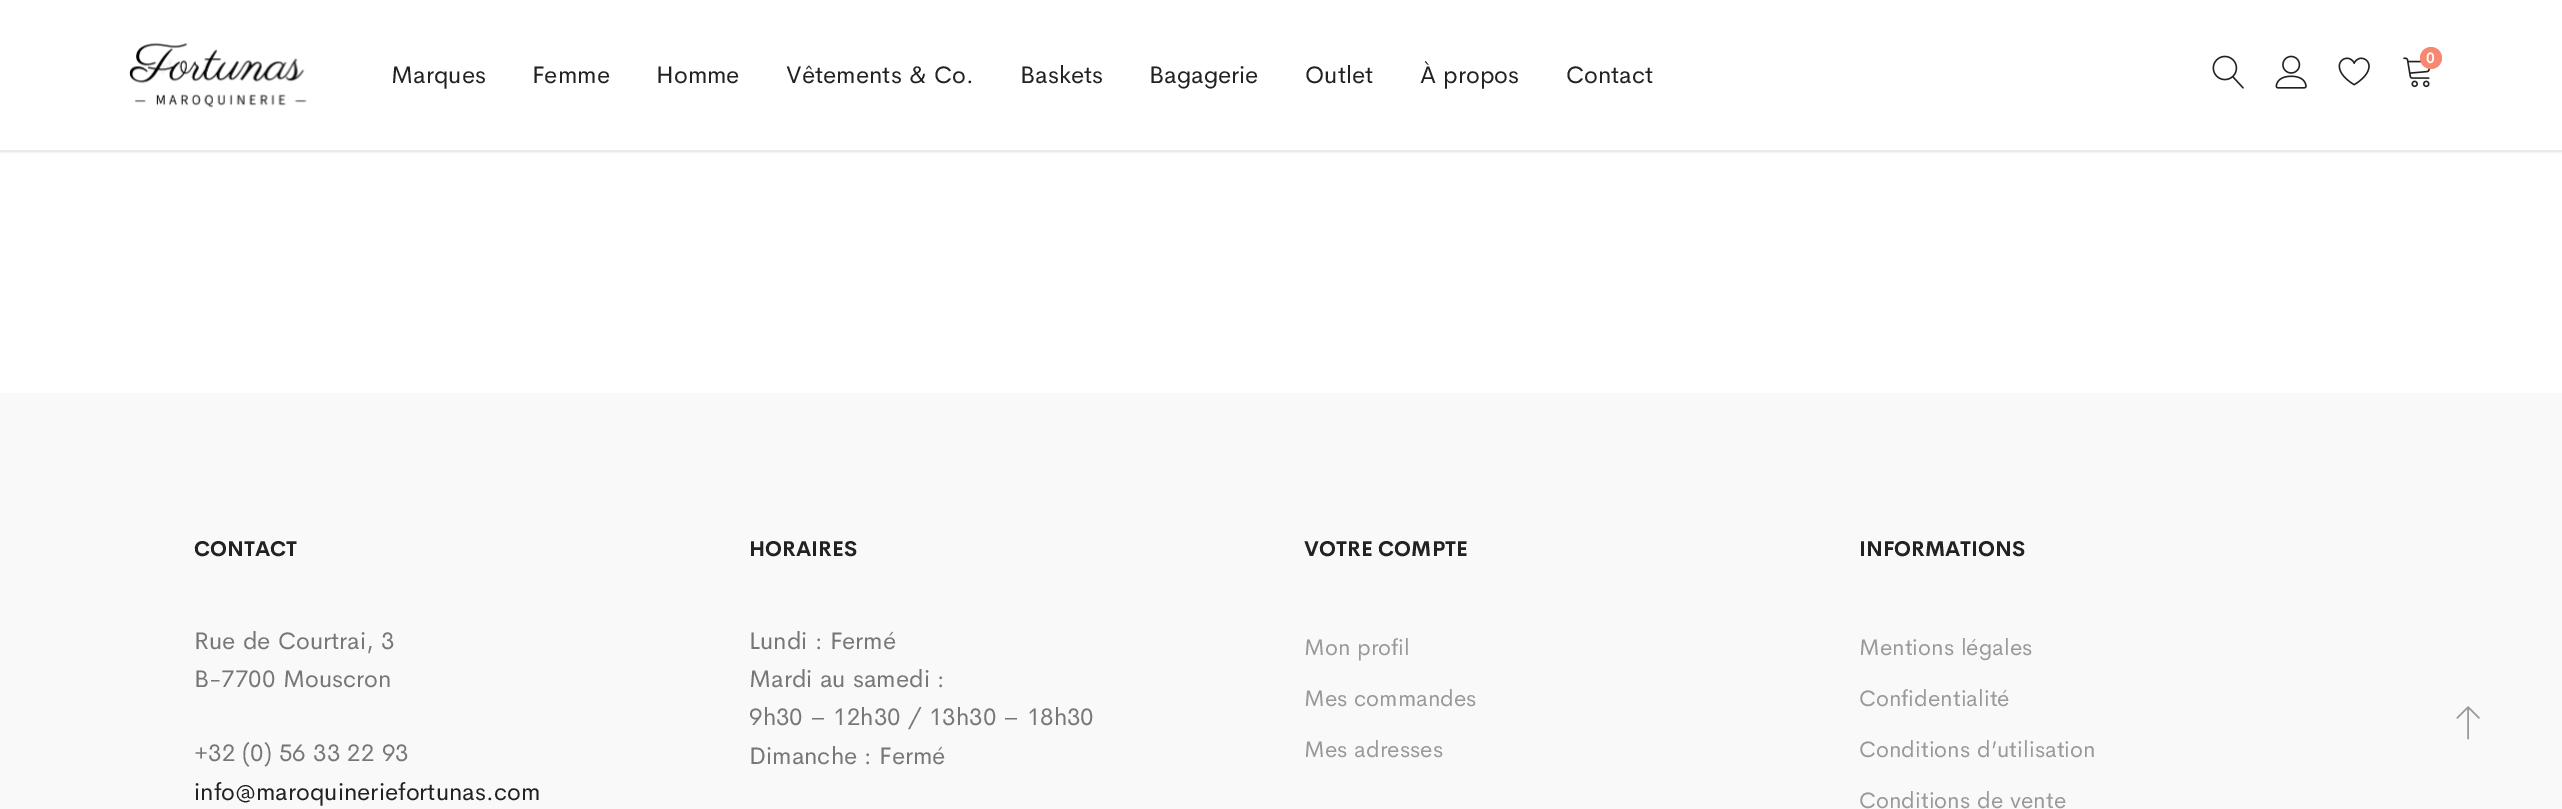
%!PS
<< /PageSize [2562 809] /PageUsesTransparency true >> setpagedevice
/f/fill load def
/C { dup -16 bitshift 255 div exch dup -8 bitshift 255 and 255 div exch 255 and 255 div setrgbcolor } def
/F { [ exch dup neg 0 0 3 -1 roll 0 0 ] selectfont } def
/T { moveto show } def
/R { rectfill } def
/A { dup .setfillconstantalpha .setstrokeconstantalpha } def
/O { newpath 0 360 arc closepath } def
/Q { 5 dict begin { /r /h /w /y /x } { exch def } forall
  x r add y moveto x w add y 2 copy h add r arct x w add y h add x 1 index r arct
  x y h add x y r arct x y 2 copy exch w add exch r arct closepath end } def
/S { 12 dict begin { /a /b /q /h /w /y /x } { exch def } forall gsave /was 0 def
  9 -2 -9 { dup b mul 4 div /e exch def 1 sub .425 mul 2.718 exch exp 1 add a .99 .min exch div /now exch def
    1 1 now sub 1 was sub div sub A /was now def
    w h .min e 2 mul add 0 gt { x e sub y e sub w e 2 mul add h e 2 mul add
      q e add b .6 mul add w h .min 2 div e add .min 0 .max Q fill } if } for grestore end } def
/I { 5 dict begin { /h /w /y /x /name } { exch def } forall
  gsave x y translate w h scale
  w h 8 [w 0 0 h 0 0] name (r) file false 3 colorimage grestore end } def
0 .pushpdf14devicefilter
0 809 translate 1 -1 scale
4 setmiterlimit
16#FFFFFF C
0 0 2562 809 R
16#F0F0F0 C
0 2 2562 151 0 1 1 S
16#FFFFFF C
0 1 2562 149 R
16#EAEAEA C
0 150 2562 2 R
(1.rgb) 129 43 178 65 I
(2.rgb) 2212 55 32 34 I
(3.rgb) 2275 55 32 34 I
(4.rgb) 2338 57 32 29 I
(5.rgb) 2403 57 28 31 I
16#F68872 C
2431 58 11 O f
/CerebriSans-SemiBold 15 F
16#FFFFFF C
(0) 2426 63 T
/CerebriSans-Regular 24 F
16#222222 C
(Marques) 391 83 T
(Femme) 532 83 T
(Homme) 656 83 T
(Vêtements & Co.) 786 83 T
(Baskets) 1020 83 T
(Bagagerie) 1149 83 T
(Outlet) 1305 83 T
(À propos) 1420 83 T
(Contact) 1566 83 T
16#F9F9F9 C
0 393 2562 416 R
/CerebriSans-Bold 21 F
16#222222 C
(CONTACT) 194 556 T
/CerebriSans-Regular 24 F
16#777777 C
(Rue de Courtrai, 3) 194 649 T
(B-7700 Mouscron) 194 687 T
(+32 \(0\) 56 33 22 93) 194 761 T
16#222222 C
(info@maroquineriefortunas.com) 194 800 T
/CerebriSans-Bold 21 F
(HORAIRES) 749 556 T
/CerebriSans-Regular 24 F
16#777777 C
(Lundi : Fermé) 749 649 T
(Mardi au samedi :) 749 687 T
(9h30 – 12h30 / 13h30 – 18h30) 749 725 T
(Dimanche : Fermé) 749 764 T
/CerebriSans-Bold 21 F
16#222222 C
(VOTRE COMPTE) 1304 556 T
/CerebriSans-Regular 22.5 F
16#999999 C
(Mon profil) 1304 655 T
(Mes commandes) 1304 706 T
(Mes adresses) 1304 757 T
/CerebriSans-Bold 21 F
16#222222 C
(INFORMATIONS) 1859 556 T
/CerebriSans-Regular 22.5 F
16#999999 C
(Mentions légales) 1859 655 T
(Confidentialité) 1859 706 T
(Conditions d’utilisation) 1859 757 T
(Conditions de vente) 1859 808 T
(6.rgb) 2456 706 24 34 I
.poppdf14devicefilter showpage
